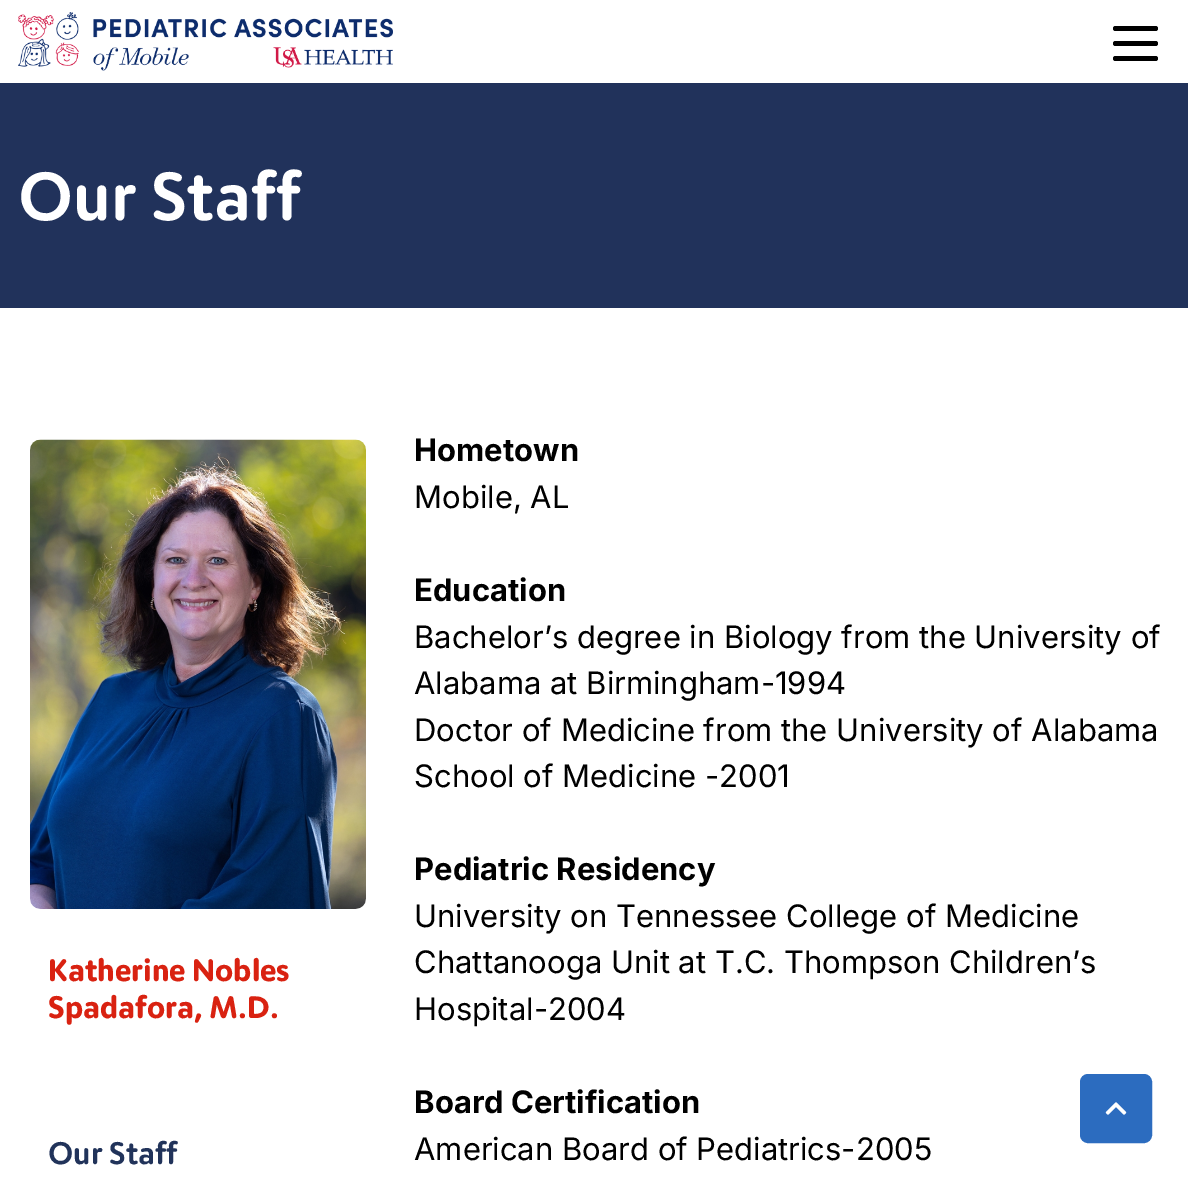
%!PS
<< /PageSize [1188 1178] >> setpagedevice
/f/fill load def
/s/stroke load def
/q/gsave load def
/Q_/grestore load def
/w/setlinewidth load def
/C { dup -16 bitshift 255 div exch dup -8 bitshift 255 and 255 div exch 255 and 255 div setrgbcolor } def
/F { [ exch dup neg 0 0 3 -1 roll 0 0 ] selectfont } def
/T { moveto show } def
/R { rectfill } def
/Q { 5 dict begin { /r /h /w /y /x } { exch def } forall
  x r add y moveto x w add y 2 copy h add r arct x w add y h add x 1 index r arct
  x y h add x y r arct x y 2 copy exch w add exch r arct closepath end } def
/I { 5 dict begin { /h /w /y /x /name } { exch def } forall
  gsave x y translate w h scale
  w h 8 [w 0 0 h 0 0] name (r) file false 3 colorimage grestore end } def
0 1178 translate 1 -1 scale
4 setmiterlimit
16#FFFFFF C
0 0 1188 1178 R
(1.rgb) 18 12 375 59 I
16#000000 C
1113 26 45 5 2.5 Q f
1113 41 45 5 2.5 Q f
1113 56 45 5 2.5 Q f
16#21325B C
0 83 1188 225 R
/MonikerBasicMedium-Medium 67.5 F
16#FFFFFF C
(Our Staff) 18 220 T
(2.rgb) 30 439 336 470 I
/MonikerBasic-Bold 31 F
16#D92211 C
(Katherine Nobles) 48 981 T
(Spadafora, M.D.) 48 1018 T
/MonikerBasicMedium-Medium 31 F
16#21335A C
(Our Staff) 48 1164 T
/Inter-Bold 31 F
16#000000 C
(Hometown) 414 461 T
/Inter-Regular 31 F
(Mobile, AL) 414 508 T
/Inter-Bold 31 F
(Education) 414 601 T
/Inter-Regular 31 F
(Bachelor’s degree in Biology from the University of) 414 648 T
(Alabama at Birmingham-1994) 414 694 T
(Doctor of Medicine from the University of Alabama) 414 741 T
(School of Medicine -2001) 414 787 T
/Inter-Bold 31 F
(Pediatric Residency) 414 880 T
/Inter-Regular 31 F
(University on Tennessee College of Medicine) 414 927 T
(Chattanooga Unit at T.C. Thompson Children’s) 414 973 T
(Hospital-2004) 414 1020 T
/Inter-Bold 31 F
(Board Certification) 414 1113 T
/Inter-Regular 31 F
(American Board of Pediatrics-2005) 414 1160 T
16#2C6CBF C
1081 1075 70 67 7 Q q f Q_
2 w
s
(3.rgb) 1105 1102 22 13 I
showpage
